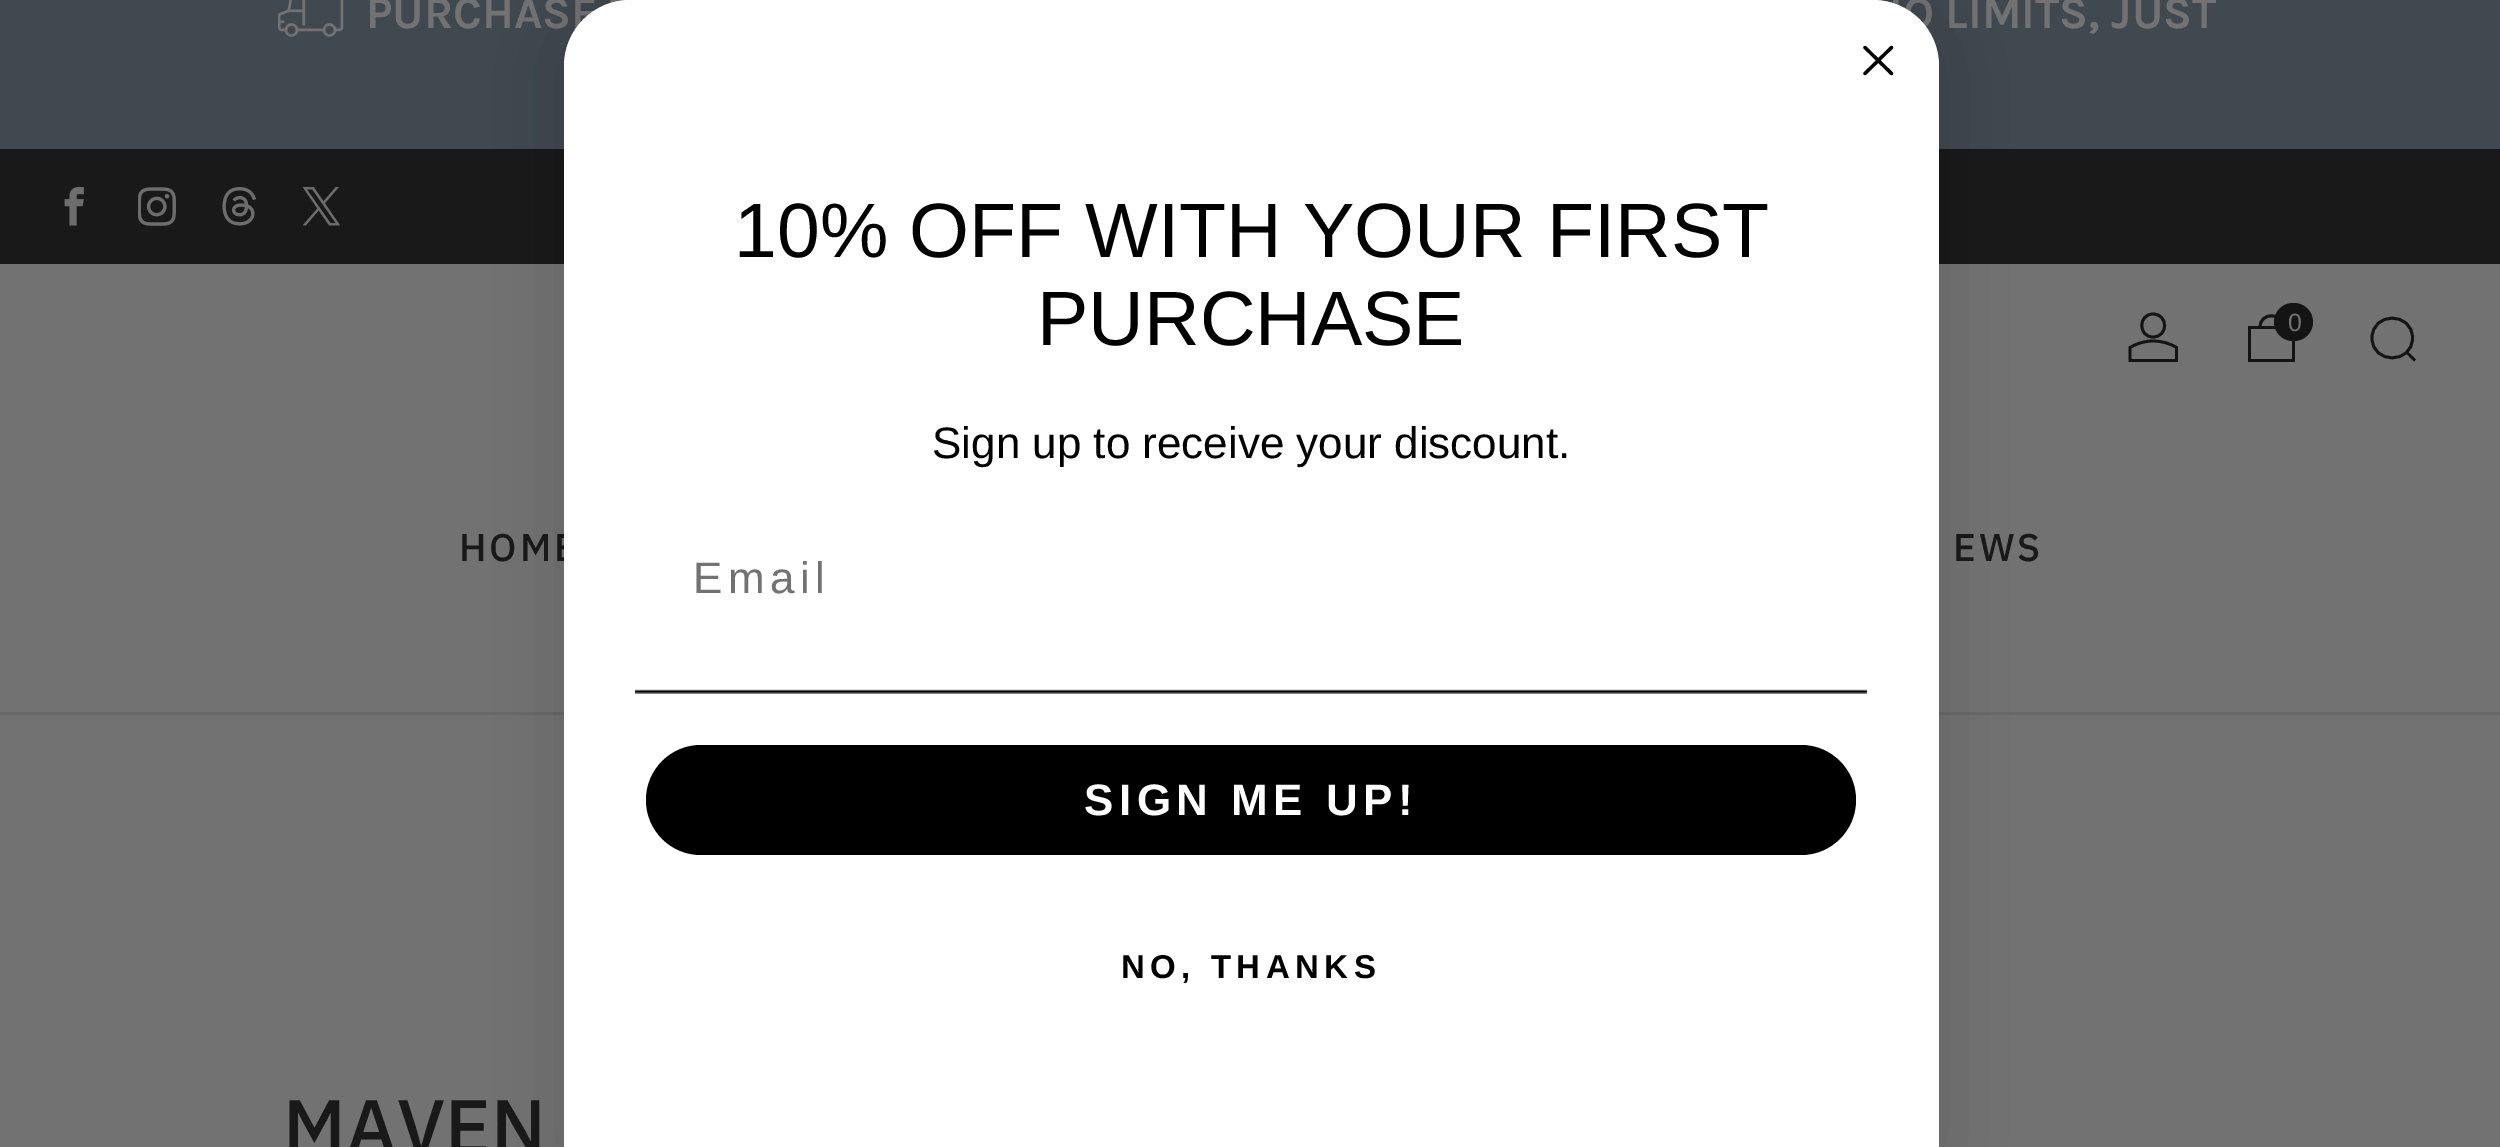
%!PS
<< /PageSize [2500 1147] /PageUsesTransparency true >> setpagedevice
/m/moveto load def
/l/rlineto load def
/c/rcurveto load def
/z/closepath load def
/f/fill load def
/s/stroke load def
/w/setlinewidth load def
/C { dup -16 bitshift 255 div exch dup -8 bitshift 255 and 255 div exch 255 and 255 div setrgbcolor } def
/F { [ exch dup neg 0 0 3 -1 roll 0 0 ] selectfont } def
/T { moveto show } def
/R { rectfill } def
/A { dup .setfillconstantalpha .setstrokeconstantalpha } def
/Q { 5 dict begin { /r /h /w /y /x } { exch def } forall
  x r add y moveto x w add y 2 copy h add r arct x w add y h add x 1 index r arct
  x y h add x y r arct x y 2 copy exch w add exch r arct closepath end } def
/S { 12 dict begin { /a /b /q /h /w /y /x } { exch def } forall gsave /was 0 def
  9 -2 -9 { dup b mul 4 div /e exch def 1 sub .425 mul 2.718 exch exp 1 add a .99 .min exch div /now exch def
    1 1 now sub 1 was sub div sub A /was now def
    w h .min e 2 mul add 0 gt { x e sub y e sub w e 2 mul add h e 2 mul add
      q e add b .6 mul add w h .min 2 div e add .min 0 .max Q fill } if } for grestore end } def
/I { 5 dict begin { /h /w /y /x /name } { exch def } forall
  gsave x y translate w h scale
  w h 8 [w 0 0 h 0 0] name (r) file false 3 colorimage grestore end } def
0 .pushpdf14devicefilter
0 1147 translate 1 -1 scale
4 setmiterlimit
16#727272 C
0 0 2500 1147 R
16#404850 C
0 0 2500 149 R
(1.rgb) 278 0 66 37 I
/Karla-Bold 45.5 F
16#727272 C
(PURCHASE T) 366 28 T
(NO LIMITS, JUST) 1870 28 T
16#191919 C
0 149 2500 115 R
(2.rgb) 64 187 20 39 I
(3.rgb) 138 187 38 39 I
(4.rgb) 222 187 35 39 I
(5.rgb) 303 187 38 39 I
16#686868 C
0 712 2500 3 R
16#141414 C
2.8 w
2153 341 m -8.5 0 -16.5 2.5 -23 6.5 c 0 13 l 46.5 0 l 0 -13 l -6.5 -4 -14.5 -6.5 -23.5 -6.5 c z 2153 337 m 15.5 0 15.5 -23 0 -23 c -15 0 -15 23 0 23 c z s
2283 327 m 0 -15 -23 -15 -23 0 c 2249.5 327.5 m 44 0 l 0 33 l -44 0 l z s
2274 303 39 38 19 Q f
/LiberationSans-Regular 25 F
16#727272 C
(0) 2288 331 T
16#141414 C
2406.5 352 m 8.5 8.5 l 2412.5 338 m 0 26.5 -40.5 26.5 -40.5 0 c 0 -26.5 40.5 -26.5 40.5 0 c z s
/IBMPlexSans-Medium 38.5 F
16#191919 C
459 561 m 3 0 (HOME) ashow
1953 561 m 3 0 (EWS) ashow
/IBMPlexSans-Medium 77 F
(MAVEN) 283 1154 T
16#000000 C
564 0 1375 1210 66 41 .15 S
16#FFFFFF C
564 0 1375 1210 66 Q f
16#000000 C
3.3 w
1 setlinecap
1 setlinejoin
1865 47.5 m 26.5 26 l 1865 73.5 m 26.5 -26 l z s
/LiberationSans-Regular 77 F
(10% OFF WITH YOUR FIRST) 734 257 T
(PURCHASE) 1037 345 T
/LiberationSans-Regular 44 F
(Sign up to receive your discount.) 932 458 T
16#727272 C
693 593 m 5.5 0 (Email) ashow
(6.rgb) 635 689 1232 5 I
16#000000 C
646 745 1210 110 55 Q f
/LiberationSans-Bold 44 F
16#FFFFFF C
1084 815 m 5.5 0 (SIGN ME UP!) ashow
/LiberationSans-Bold 33 F
16#000000 C
1121 978 m 5.5 0 (NO, THANKS) ashow
.poppdf14devicefilter showpage
